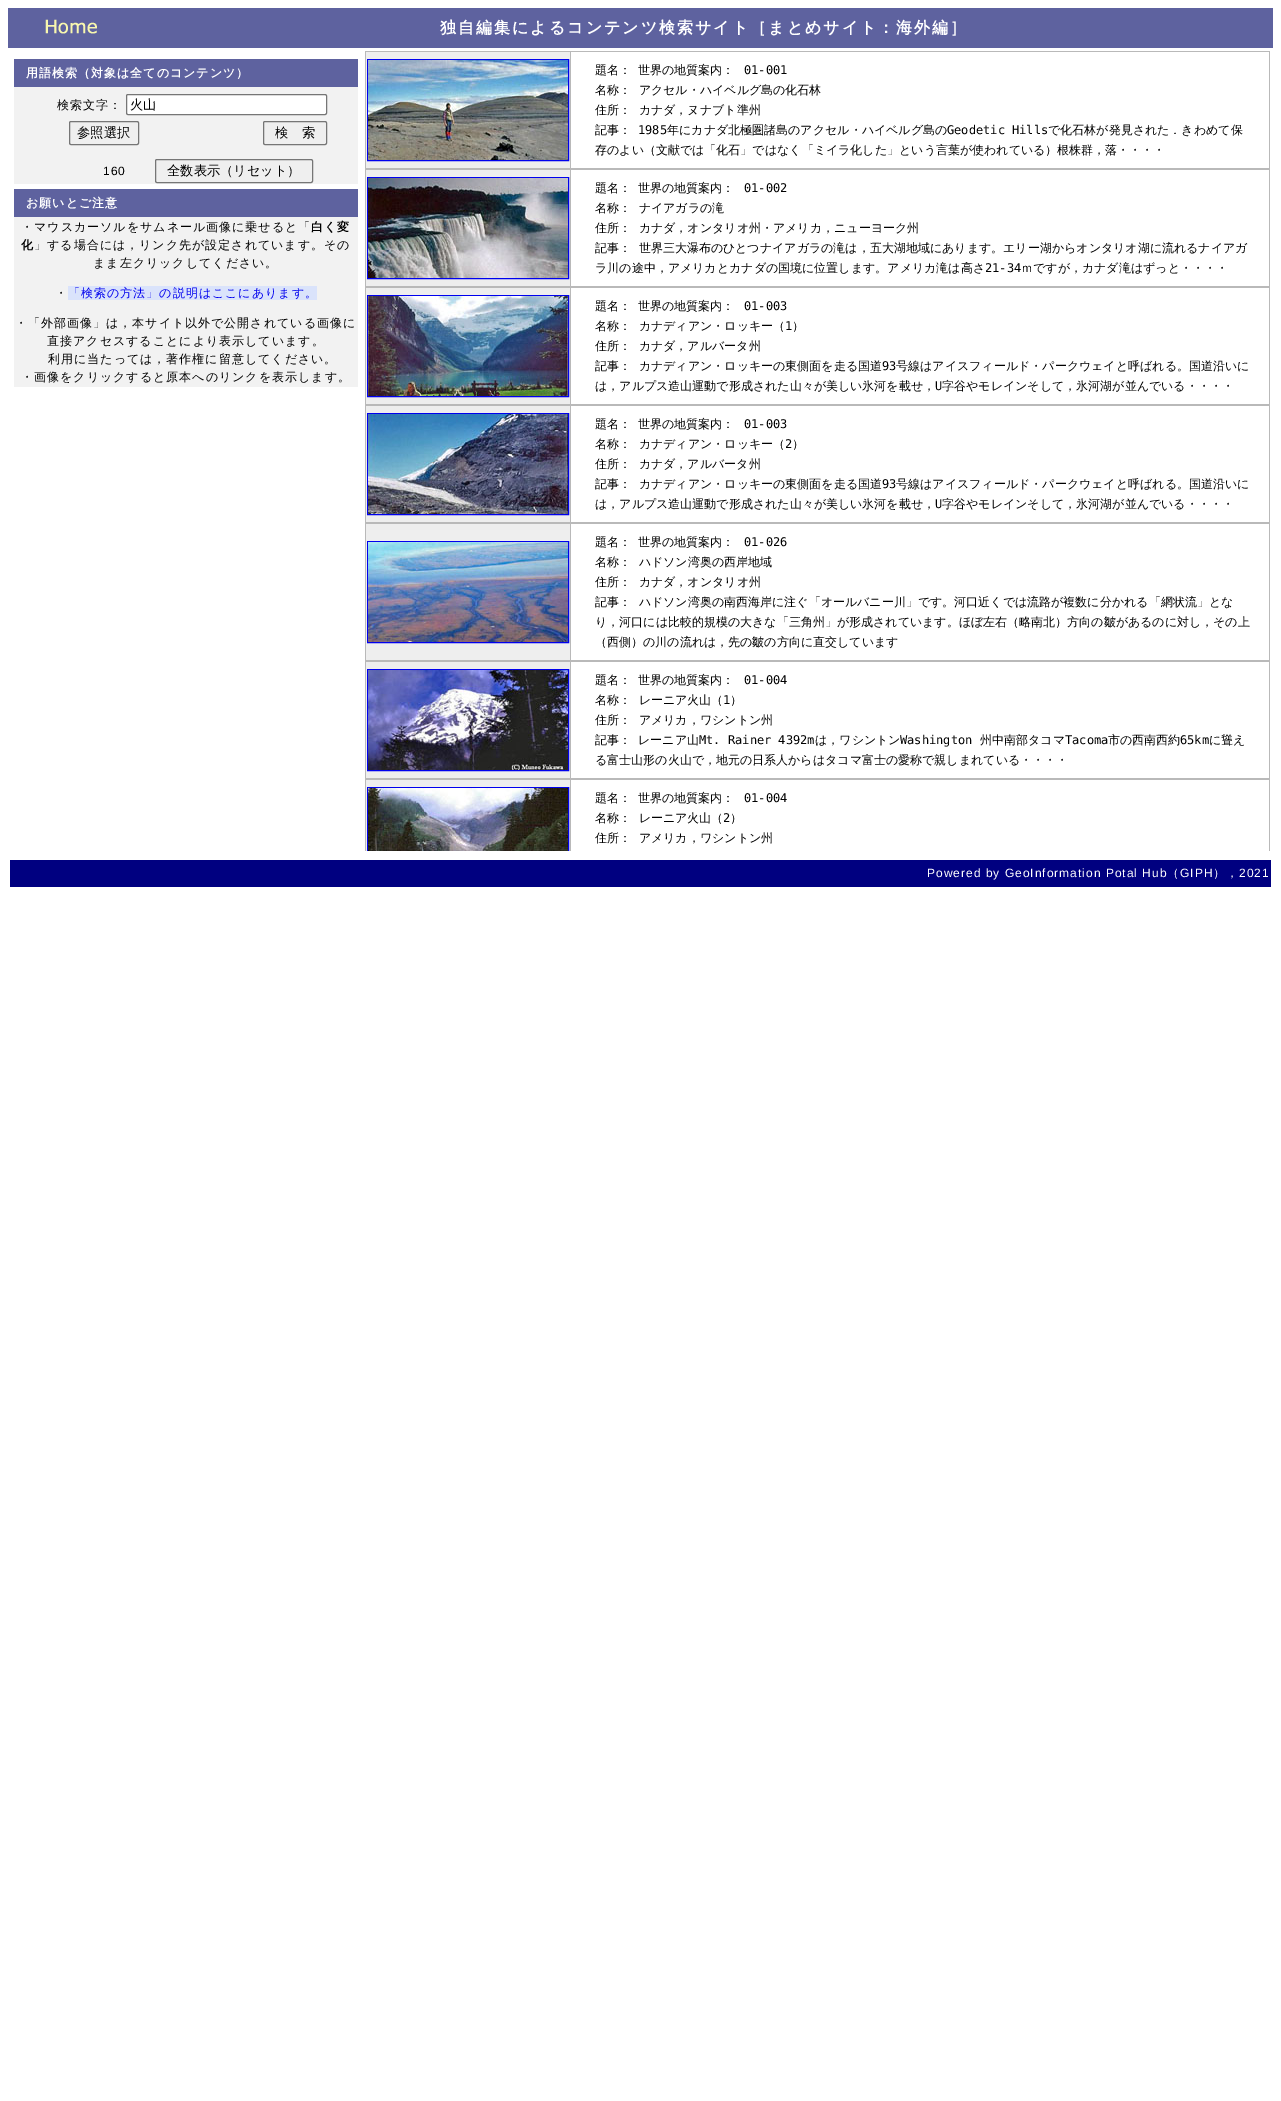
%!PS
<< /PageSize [1281 2101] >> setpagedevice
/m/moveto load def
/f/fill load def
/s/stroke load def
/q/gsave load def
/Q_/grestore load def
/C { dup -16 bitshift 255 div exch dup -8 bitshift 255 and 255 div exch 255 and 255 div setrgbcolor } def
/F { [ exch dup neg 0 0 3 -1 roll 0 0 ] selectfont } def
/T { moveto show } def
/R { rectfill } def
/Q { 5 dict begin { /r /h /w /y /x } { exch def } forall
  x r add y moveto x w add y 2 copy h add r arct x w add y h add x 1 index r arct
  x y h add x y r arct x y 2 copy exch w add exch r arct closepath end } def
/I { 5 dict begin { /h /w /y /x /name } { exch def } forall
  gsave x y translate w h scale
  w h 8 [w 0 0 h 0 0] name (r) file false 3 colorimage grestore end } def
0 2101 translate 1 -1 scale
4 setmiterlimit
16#FFFFFF C
0 0 1281 2101 R
16#5E629F C
8 8 1265 40 R
(1.rgb) 45 19 52 15 I
/WenQuanYiZenHei-Bold 16 F
16#FFFFFF C
440 33 m 2 0 (独自編集によるコンテンツ検索サイト［まとめサイト：海外編］) ashow
16#5E629F C
14 59 344 28 R
/WenQuanYiZenHei-Bold 12 F
16#FFFFFF C
26 77 m 1 0 (用語検索（対象は全てのコンテンツ）) ashow
16#F2F2F2 C
14 87 344 97 R
/WenQuanYiZenHei-Medium 12 F
16#000000 C
57 109 m 1 0 (検索文字：) ashow
16#FFFFFF C
126.5 94.5 200 20 1.5 Q q f Q_
16#767676 C
s
/WenQuanYiZenHei-Medium 13.25 F
16#000000 C
(火山) 130 109 T
16#EFEFEF C
69.5 121.5 69 23 1.5 Q q f Q_
16#767676 C
s
16#000000 C
(参照選択) 77 137 T
16#EFEFEF C
263.5 121.5 63 23 1.5 Q q f Q_
16#767676 C
s
16#000000 C
(検　索) 275 137 T
/LiberationSans-Regular 12 F
103 175 m 1 0 (160) ashow
16#EFEFEF C
155.5 159.5 157 23 1.5 Q q f Q_
16#767676 C
s
/WenQuanYiZenHei-Medium 13.25 F
16#000000 C
(全数表示（リセット）) 167 175 T
16#5E629F C
14 189 344 28 R
/WenQuanYiZenHei-Bold 12 F
16#FFFFFF C
26 207 m 1 0 (お願いとご注意) ashow
16#F2F2F2 C
14 217 344 170 R
/WenQuanYiZenHei-Medium 12 F
16#000000 C
21 231 m 1 0 (・マウスカーソルをサムネール画像に乗せると「) ashow
/WenQuanYiZenHei-Bold 12 F
311 231 m 1 0 (白く変) ashow
21 249 m 1 0 (化) ashow
/WenQuanYiZenHei-Medium 12 F
34 249 m 1 0 (」する場合には，リンク先が設定されています。その) ashow
93 267 m 1 0 (まま左クリックしてください。) ashow
55 297 m 1 0 (・) ashow
16#DAE3FB C
68 286 249 14 R
16#0000EE C
68 297 m 1 0 (「検索の方法」の説明はここにあります。) ashow
16#000000 C
15 327 m 1 0 (・「外部画像」は，本サイト以外で公開されている画像に) ashow
47 345 m 1 0 (直接アクセスすることにより表示しています。) ashow
48 363 m 1 0 (利用に当たっては，著作権に留意してください。) ashow
21 381 m 1 0 (・画像をクリックすると原本へのリンクを表示します。) ashow
16#EEEEEE C
366 52 204 116 R
16#B9B9B9 C
570 51 700 1 R
1269 51 1 118 R
570 168 700 2 R
570 51 1 118 R
365 51 206 1 R
365 168 206 1 R
365 51 1 118 R
16#0000EE C
367.5 59.5 201 101 rectstroke
(2.rgb) 368 60 200 100 I
16#000000 C
595 74 m 3 0 32 (題名： 世界の地質案内：) widthshow
/DejaVuSansMono-Regular 12 F
(01-001) 744 74 T
/WenQuanYiZenHei-Medium 12 F
595 94 m 4 0 32 (名称： アクセル・ハイベルグ島の化石林) widthshow
595 114 m 4 0 32 (住所： カナダ，ヌナブト準州) widthshow
(記事：) 595 134 T
/DejaVuSansMono-Regular 12 F
(1985) 638 134 T
/WenQuanYiZenHei-Medium 12 F
(年にカナダ北極圏諸島のアクセル・ハイベルグ島の) 667 134 T
/DejaVuSansMono-Regular 12 F
(Geodetic Hills) 947 134 T
/WenQuanYiZenHei-Medium 12 F
(で化石林が発見された．きわめて保) 1048 134 T
(存のよい（文献では「化石」ではなく「ミイラ化した」という言葉が使われている）根株群，落・・・・) 595 154 T
16#EEEEEE C
366 170 204 116 R
16#B9B9B9 C
1269 169 1 118 R
570 286 700 2 R
570 169 1 118 R
365 169 206 1 R
365 286 206 1 R
365 169 1 118 R
16#0000EE C
367.5 177.5 201 101 rectstroke
(3.rgb) 368 178 200 100 I
16#000000 C
595 192 m 3 0 32 (題名： 世界の地質案内：) widthshow
/DejaVuSansMono-Regular 12 F
(01-002) 744 192 T
/WenQuanYiZenHei-Medium 12 F
595 212 m 4 0 32 (名称： ナイアガラの滝) widthshow
595 232 m 4 0 32 (住所： カナダ，オンタリオ州・アメリカ，ニューヨーク州) widthshow
595 252 m 4 0 32 (記事： 世界三大瀑布のひとつナイアガラの滝は，五大湖地域にあります。エリー湖からオンタリオ湖に流れるナイアガ) widthshow
(ラ川の途中，アメリカとカナダの国境に位置します。アメリカ滝は高さ) 595 272 T
/DejaVuSansMono-Regular 12 F
(21-34) 985 272 T
/WenQuanYiZenHei-Medium 12 F
(ｍですが，カナダ滝はずっと・・・・) 1021 272 T
16#EEEEEE C
366 288 204 116 R
16#B9B9B9 C
1269 287 1 118 R
570 404 700 2 R
570 287 1 118 R
365 287 206 1 R
365 404 206 1 R
365 287 1 118 R
16#0000EE C
367.5 295.5 201 101 rectstroke
(4.rgb) 368 296 200 100 I
16#000000 C
595 310 m 3 0 32 (題名： 世界の地質案内：) widthshow
/DejaVuSansMono-Regular 12 F
(01-003) 744 310 T
/WenQuanYiZenHei-Medium 12 F
595 330 m 4 0 32 (名称： カナディアン・ロッキー（) widthshow
/DejaVuSansMono-Regular 12 F
(1) 785 330 T
/WenQuanYiZenHei-Medium 12 F
(）) 792 330 T
595 350 m 4 0 32 (住所： カナダ，アルバータ州) widthshow
595 370 m 4 0 32 (記事： カナディアン・ロッキーの東側面を走る国道) widthshow
/DejaVuSansMono-Regular 12 F
(93) 882 370 T
/WenQuanYiZenHei-Medium 12 F
(号線はアイスフィールド・パークウェイと呼ばれる。国道沿いに) 896 370 T
(は，アルプス造山運動で形成された山々が美しい氷河を載せ，) 595 390 T
/DejaVuSansMono-Regular 12 F
(U) 935 390 T
/WenQuanYiZenHei-Medium 12 F
(字谷やモレインそして，氷河湖が並んでいる・・・・) 942 390 T
16#EEEEEE C
366 406 204 116 R
16#B9B9B9 C
1269 405 1 118 R
570 522 700 2 R
570 405 1 118 R
365 405 206 1 R
365 522 206 1 R
365 405 1 118 R
16#0000EE C
367.5 413.5 201 101 rectstroke
(5.rgb) 368 414 200 100 I
16#000000 C
595 428 m 3 0 32 (題名： 世界の地質案内：) widthshow
/DejaVuSansMono-Regular 12 F
(01-003) 744 428 T
/WenQuanYiZenHei-Medium 12 F
595 448 m 4 0 32 (名称： カナディアン・ロッキー（) widthshow
/DejaVuSansMono-Regular 12 F
(2) 785 448 T
/WenQuanYiZenHei-Medium 12 F
(）) 792 448 T
595 468 m 4 0 32 (住所： カナダ，アルバータ州) widthshow
595 488 m 4 0 32 (記事： カナディアン・ロッキーの東側面を走る国道) widthshow
/DejaVuSansMono-Regular 12 F
(93) 882 488 T
/WenQuanYiZenHei-Medium 12 F
(号線はアイスフィールド・パークウェイと呼ばれる。国道沿いに) 896 488 T
(は，アルプス造山運動で形成された山々が美しい氷河を載せ，) 595 508 T
/DejaVuSansMono-Regular 12 F
(U) 935 508 T
/WenQuanYiZenHei-Medium 12 F
(字谷やモレインそして，氷河湖が並んでいる・・・・) 942 508 T
16#EEEEEE C
366 524 204 136 R
16#B9B9B9 C
1269 523 1 138 R
570 660 700 2 R
570 523 1 138 R
365 523 206 1 R
365 660 206 1 R
365 523 1 138 R
16#0000EE C
367.5 541.5 201 101 rectstroke
(6.rgb) 368 542 200 100 I
16#000000 C
595 546 m 3 0 32 (題名： 世界の地質案内：) widthshow
/DejaVuSansMono-Regular 12 F
(01-026) 744 546 T
/WenQuanYiZenHei-Medium 12 F
595 566 m 4 0 32 (名称： ハドソン湾奥の西岸地域) widthshow
595 586 m 4 0 32 (住所： カナダ，オンタリオ州) widthshow
595 606 m 4 0 32 (記事： ハドソン湾奥の南西海岸に注ぐ「オールバニー川」です。河口近くでは流路が複数に分かれる「網状流」とな) widthshow
(り，河口には比較的規模の大きな「三角州」が形成されています。ほぼ左右（略南北）方向の皺があるのに対し，その上) 595 626 T
(（西側）の川の流れは，先の皺の方向に直交しています) 595 646 T
16#EEEEEE C
366 662 204 116 R
16#B9B9B9 C
1269 661 1 118 R
570 778 700 2 R
570 661 1 190 R
365 661 206 1 R
365 778 206 2 R
365 661 1 190 R
16#0000EE C
367.5 669.5 201 101 rectstroke
(7.rgb) 368 670 200 100 I
16#000000 C
595 684 m 3 0 32 (題名： 世界の地質案内：) widthshow
/DejaVuSansMono-Regular 12 F
(01-004) 744 684 T
/WenQuanYiZenHei-Medium 12 F
595 704 m 4 0 32 (名称： レーニア火山（) widthshow
/DejaVuSansMono-Regular 12 F
(1) 723 704 T
/WenQuanYiZenHei-Medium 12 F
(）) 730 704 T
595 724 m 4 0 32 (住所： アメリカ，ワシントン州) widthshow
(記事：) 595 744 T
(レーニア山) 638 744 T
/DejaVuSansMono-Regular 12 F
(Mt. Rainer 4392m) 699 744 T
/WenQuanYiZenHei-Medium 12 F
(は，ワシントン) 815 744 T
/DejaVuSansMono-Regular 12 F
(Washington) 900 744 T
/WenQuanYiZenHei-Medium 12 F
(州中南部タコマ) 980 744 T
/DejaVuSansMono-Regular 12 F
(Tacoma) 1065 744 T
/WenQuanYiZenHei-Medium 12 F
(市の西南西約) 1108 744 T
/DejaVuSansMono-Regular 12 F
(65km) 1180 744 T
/WenQuanYiZenHei-Medium 12 F
(に聳え) 1209 744 T
(る富士山形の火山で，地元の日系人からはタコマ富士の愛称で親しまれている・・・・) 595 764 T
16#EEEEEE C
366 780 204 71 R
16#000080 C
10 860 1261 27 R
q
365 51 905 800 rectclip
16#0000EE C
367.5 787.5 201 101 rectstroke
Q_
(8.rgb) 368 788 200 63 I
16#B9B9B9 C
1269 779 1 72 R
16#000000 C
595 802 m 3 0 32 (題名： 世界の地質案内：) widthshow
/DejaVuSansMono-Regular 12 F
(01-004) 744 802 T
/WenQuanYiZenHei-Medium 12 F
595 822 m 4 0 32 (名称： レーニア火山（) widthshow
/DejaVuSansMono-Regular 12 F
(2) 723 822 T
/WenQuanYiZenHei-Medium 12 F
(）) 730 822 T
595 842 m 4 0 32 (住所： アメリカ，ワシントン州) widthshow
/LiberationSans-Regular 12 F
16#FFFFFF C
927 877 m 1 0 (Powered by GeoInformation Potal Hub) ashow
/WenQuanYiZenHei-Medium 12 F
1167 877 m 1 0 (（) ashow
/LiberationSans-Regular 12 F
1180 877 m 1 0 (GIPH) ashow
/WenQuanYiZenHei-Medium 12 F
1213 877 m 1 0 (），) ashow
/LiberationSans-Regular 12 F
1239 877 m 1 0 (2021) ashow
showpage
